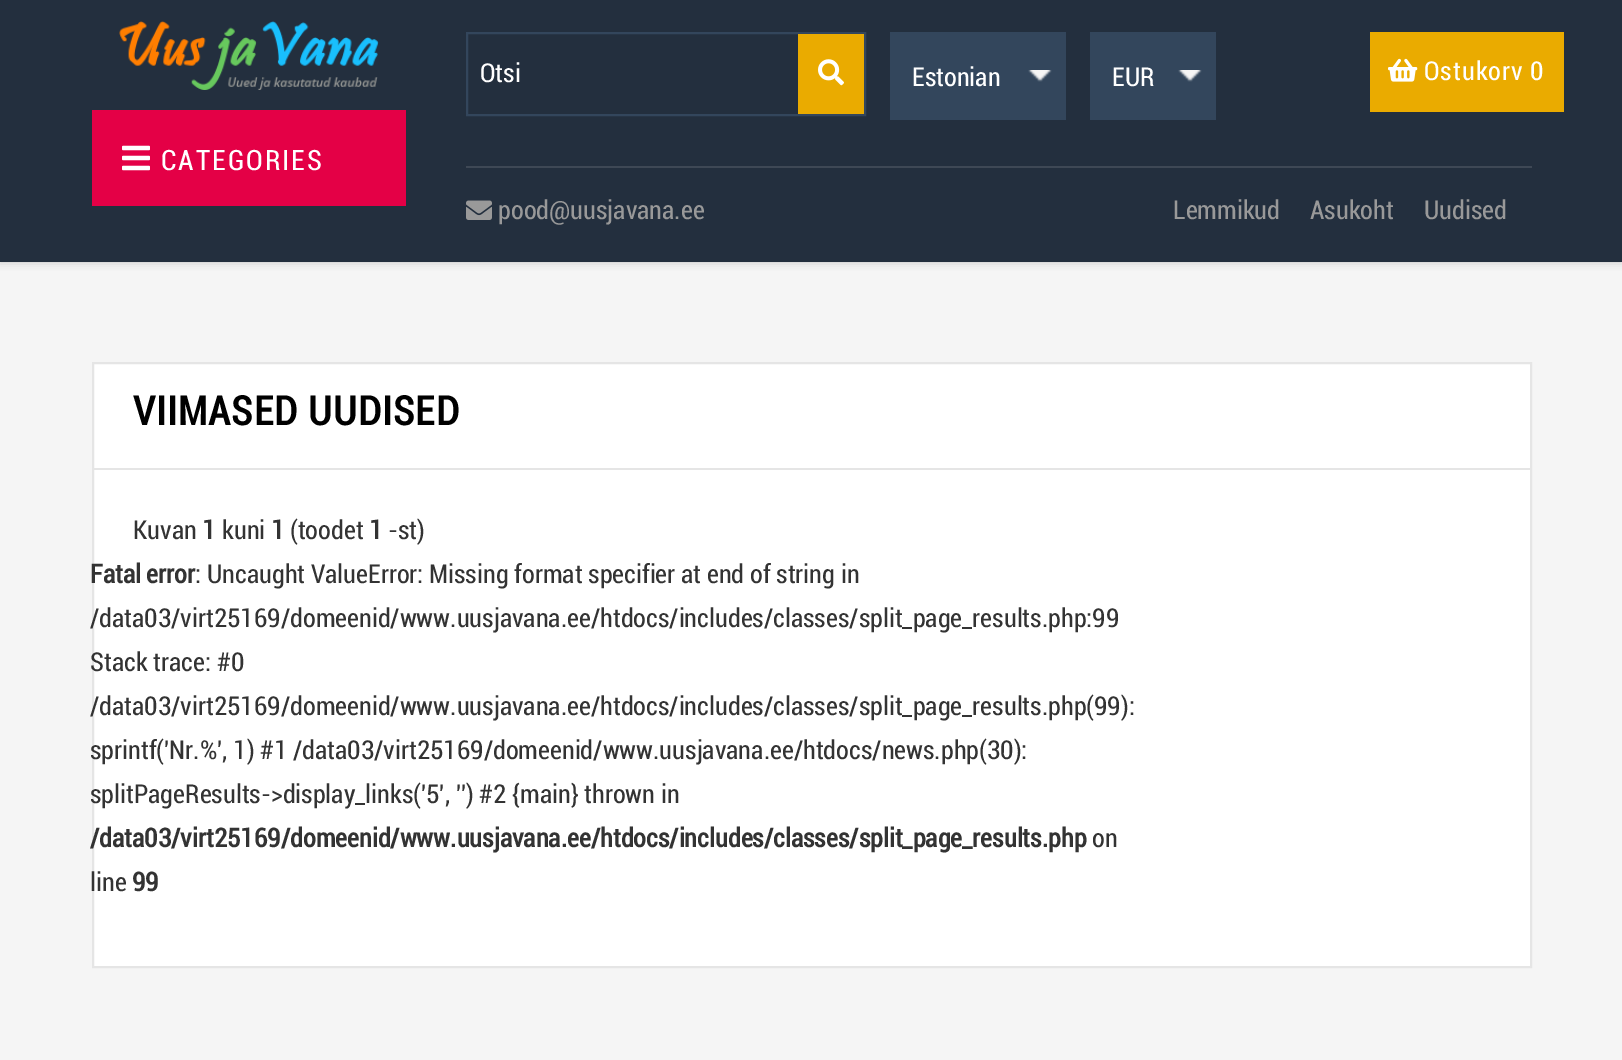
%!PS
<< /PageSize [1622 1060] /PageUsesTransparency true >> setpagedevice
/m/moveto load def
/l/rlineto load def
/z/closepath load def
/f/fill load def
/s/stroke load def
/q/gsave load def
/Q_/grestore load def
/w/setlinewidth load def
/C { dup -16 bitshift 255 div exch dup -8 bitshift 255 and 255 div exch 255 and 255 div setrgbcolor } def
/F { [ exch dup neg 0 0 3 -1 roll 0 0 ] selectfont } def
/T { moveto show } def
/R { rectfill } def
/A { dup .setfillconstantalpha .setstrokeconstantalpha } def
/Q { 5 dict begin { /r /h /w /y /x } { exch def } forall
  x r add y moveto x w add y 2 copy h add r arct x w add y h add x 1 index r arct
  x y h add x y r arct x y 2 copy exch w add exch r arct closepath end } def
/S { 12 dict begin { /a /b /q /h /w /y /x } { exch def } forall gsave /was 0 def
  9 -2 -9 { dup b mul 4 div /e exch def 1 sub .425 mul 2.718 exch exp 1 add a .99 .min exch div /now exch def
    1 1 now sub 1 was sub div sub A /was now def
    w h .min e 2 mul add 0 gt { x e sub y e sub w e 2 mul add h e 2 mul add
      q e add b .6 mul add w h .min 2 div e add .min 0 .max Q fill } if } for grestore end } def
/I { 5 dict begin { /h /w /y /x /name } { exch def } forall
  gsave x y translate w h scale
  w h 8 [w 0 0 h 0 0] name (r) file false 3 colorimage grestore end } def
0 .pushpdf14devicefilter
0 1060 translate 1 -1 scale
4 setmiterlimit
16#F5F5F5 C
0 0 1622 1060 R
16#000000 C
0 0 1622 262 0 4 .2 S
16#232F3E C
0 0 1622 262 R
(1.rgb) 119 21 260 69 I
16#E40046 C
92 110 314 96 R
(2.rgb) 122 145 28 26 I
/Roboto-Regular 28 F
16#FFFFFF C
161 170 m 2 0 (CATEGORIES) ashow
16#33465C C
2 w
467 33 398 82 rectstroke
/Roboto-Regular 26 F
16#FFFFFF C
(Otsi) 480 82 T
16#EAAB00 C
798 34 66 80 R
(3.rgb) 818 59 26 27 I
16#33465C C
890 32 176 88 R
(4.rgb) 1028 70 24 12 I
16#FFFFFF C
(Estonian) 912 86 T
16#33465C C
1090 32 126 88 R
(4.rgb) 1178 70 24 12 I
16#FFFFFF C
(EUR) 1112 86 T
16#EAAB00 C
1370 32 194 80 R
(5.rgb) 1388 58 30 24 I
16#FFFFFF C
1424 80 m 1 0 (Ostukorv 0) ashow
16#3E4855 C
466 166 1066 2 R
(6.rgb) 466 200 26 20 I
16#999999 C
(pood@uusjavana.ee) 498 219 T
(Lemmikud) 1173 219 T
(Asukoht) 1310 219 T
(Uudised) 1424 219 T
16#FFFFFF C
93 363 m 1438 0 l 0 604 l -1438 0 l z q f Q_
16#E5E5E5 C
s
94 468 1436 2 R
/Roboto-Bold 40 F
16#000000 C
133 425 m 1 0 (VIIMASED UUDISED) ashow
/Roboto-Regular 26 F
16#333333 C
(Kuvan) 133 539 T
/Roboto-Bold 26 F
(1) 202 539 T
/Roboto-Regular 26 F
(kuni) 222 539 T
/Roboto-Bold 26 F
(1) 271 539 T
/Roboto-Regular 26 F
(\(toodet) 290 539 T
/Roboto-Bold 26 F
(1) 369 539 T
/Roboto-Regular 26 F
(-st\)) 388 539 T
/Roboto-Bold 26 F
(Fatal error) 90 583 T
/Roboto-Regular 26 F
(: Uncaught ValueError: Missing format specifier at end of string in) 195 583 T
(/data03/virt25169/domeenid/www.uusjavana.ee/htdocs/includes/classes/split_page_results.php:99) 90 627 T
(Stack trace: #0) 90 671 T
(/data03/virt25169/domeenid/www.uusjavana.ee/htdocs/includes/classes/split_page_results.php\(99\):) 90 715 T
(sprintf\('Nr.%', 1\) #1 /data03/virt25169/domeenid/www.uusjavana.ee/htdocs/news.php\(30\):) 90 759 T
(splitPageResults->display_links\('5', ''\) #2 {main} thrown in) 90 803 T
/Roboto-Bold 26 F
(/data03/virt25169/domeenid/www.uusjavana.ee/htdocs/includes/classes/split_page_results.php) 90 847 T
/Roboto-Regular 26 F
(on) 1092 847 T
(line) 90 891 T
/Roboto-Bold 26 F
(99) 132 891 T
.poppdf14devicefilter showpage
